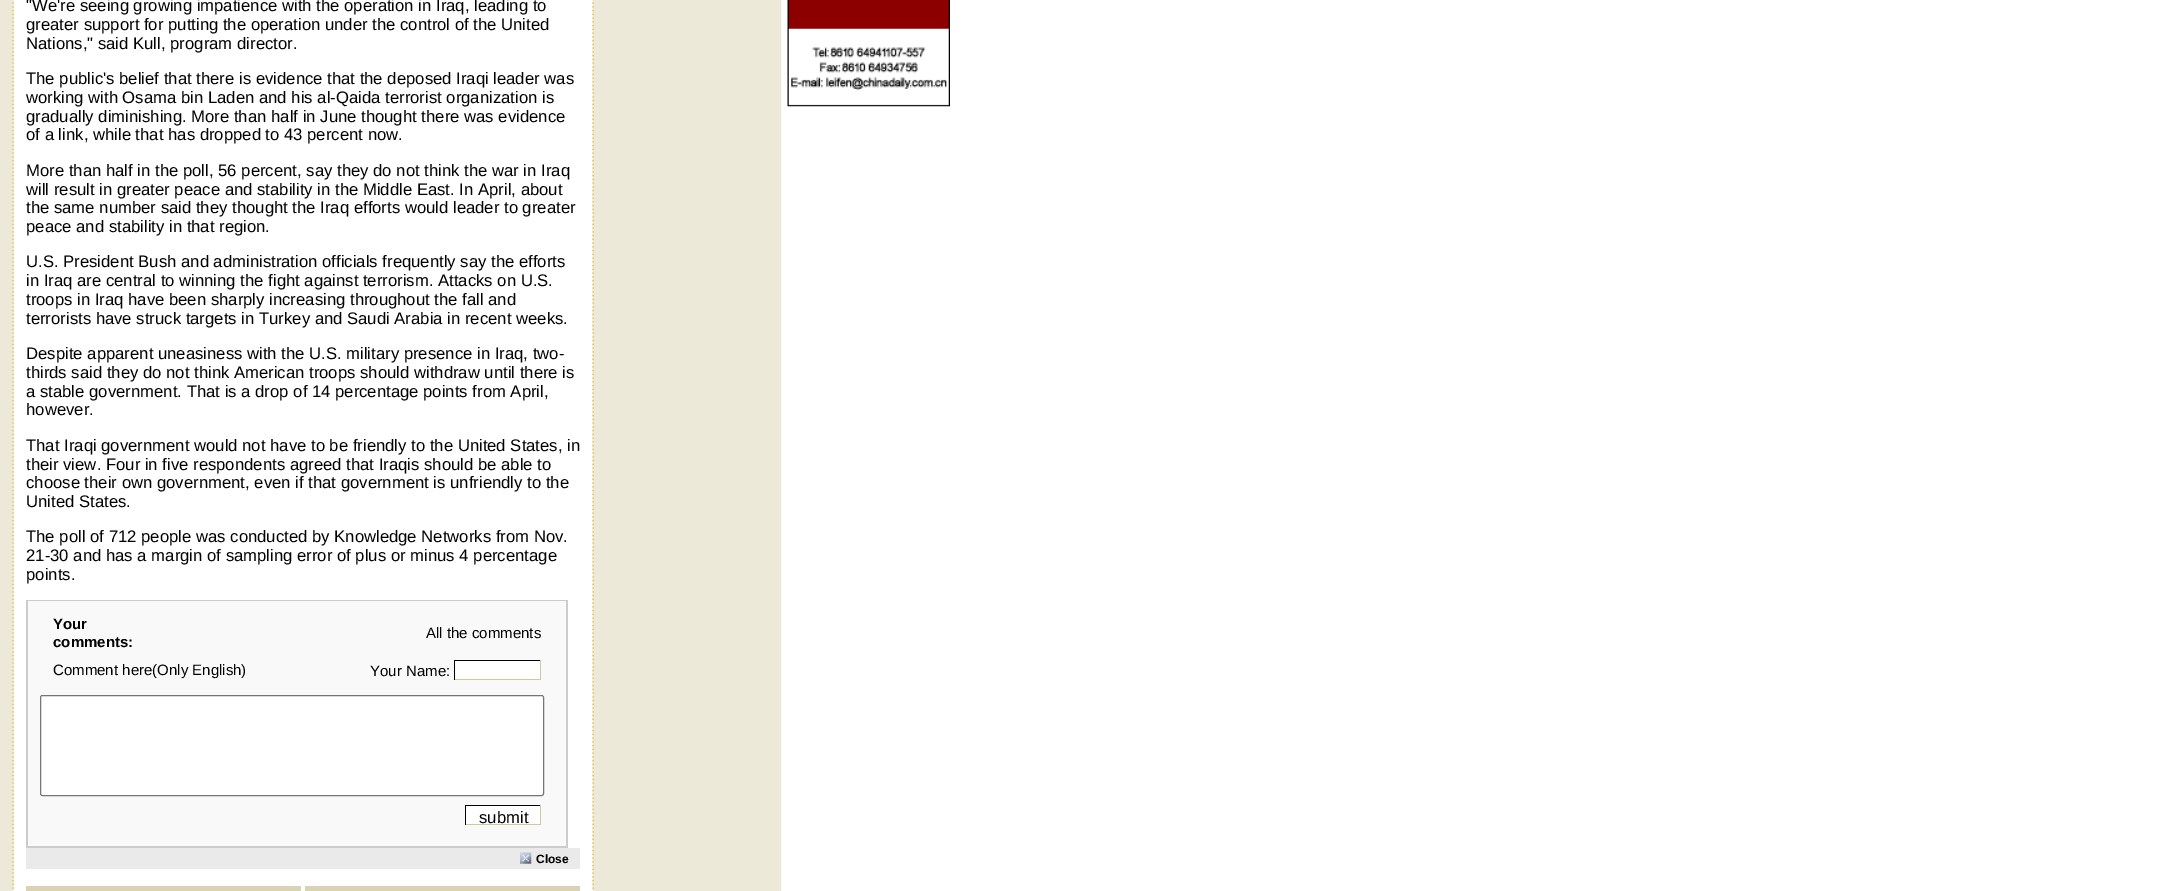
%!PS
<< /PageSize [2184 891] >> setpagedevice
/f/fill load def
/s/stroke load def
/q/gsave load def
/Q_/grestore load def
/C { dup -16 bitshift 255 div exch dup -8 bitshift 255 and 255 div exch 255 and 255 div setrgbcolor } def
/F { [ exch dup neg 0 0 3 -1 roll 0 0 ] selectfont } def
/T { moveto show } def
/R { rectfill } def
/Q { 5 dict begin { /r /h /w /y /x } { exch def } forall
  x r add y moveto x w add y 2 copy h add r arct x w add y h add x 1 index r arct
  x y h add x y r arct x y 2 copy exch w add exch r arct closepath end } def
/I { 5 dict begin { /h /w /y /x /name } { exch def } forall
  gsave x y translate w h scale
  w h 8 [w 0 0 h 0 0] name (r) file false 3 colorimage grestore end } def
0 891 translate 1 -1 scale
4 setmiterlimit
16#FFFFFF C
0 0 2184 891 R
(1.rgb) 0 0 782 891 I
/LiberationSans-Regular 16.7 F
16#000000 C
("We're seeing growing impatience with the operation in Iraq, leading to) 26 11 T
(greater support for putting the operation under the control of the United) 26 30 T
(Nations," said Kull, program director.) 26 49 T
(The public's belief that there is evidence that the deposed Iraqi leader was) 26 84 T
(working with Osama bin Laden and his al-Qaida terrorist organization is) 26 103 T
(gradually diminishing. More than half in June thought there was evidence) 26 122 T
(of a link, while that has dropped to 43 percent now.) 26 140 T
(More than half in the poll, 56 percent, say they do not think the war in Iraq) 26 176 T
(will result in greater peace and stability in the Middle East. In April, about) 26 195 T
(the same number said they thought the Iraq efforts would leader to greater) 26 213 T
(peace and stability in that region.) 26 232 T
(U.S. President Bush and administration officials frequently say the efforts) 26 267 T
(in Iraq are central to winning the fight against terrorism. Attacks on U.S.) 26 286 T
(troops in Iraq have been sharply increasing throughout the fall and) 26 305 T
(terrorists have struck targets in Turkey and Saudi Arabia in recent weeks.) 26 324 T
(Despite apparent uneasiness with the U.S. military presence in Iraq, two-) 26 359 T
(thirds said they do not think American troops should withdraw until there is) 26 378 T
(a stable government. That is a drop of 14 percentage points from April,) 26 397 T
(however.) 26 415 T
(That Iraqi government would not have to be friendly to the United States, in) 26 451 T
(their view. Four in five respondents agreed that Iraqis should be able to) 26 470 T
(choose their own government, even if that government is unfriendly to the) 26 488 T
(United States.) 26 507 T
(The poll of 712 people was conducted by Knowledge Networks from Nov.) 26 542 T
(21-30 and has a margin of sampling error of plus or minus 4 percentage) 26 561 T
(points.) 26 580 T
16#CCCCCC C
26 600 542 248 R
16#F9F9F9 C
28 601 538 245 R
/LiberationSans-Bold 15 F
16#000000 C
(Your) 53 629 T
(comments:) 53 647 T
/LiberationSans-Regular 15 F
(All the comments) 426 638 T
(Comment here\(Only English\)) 53 675 T
(Your Name:) 370 676 T
16#FFFFFF C
455 661 85 18 R
16#000000 C
454 660 87 1 R
16#CCCC99 C
540 660 1 20 R
454 679 87 1 R
16#000000 C
454 660 1 20 R
16#FFFFFF C
40.5 695.5 503 100 2 Q q f Q_
16#767676 C
s
16#FFFFFF C
466 806 74 18 R
16#000000 C
465 805 76 1 R
16#CCCC99 C
540 805 1 20 R
465 824 76 1 R
16#000000 C
465 805 1 20 R
/LiberationSans-Regular 16.7 F
(submit) 479 823 T
16#EAEAEA C
26 848 554 21 R
(2.rgb) 520 852 12 12 I
/LiberationSans-Bold 12 F
16#000000 C
(Close) 536 863 T
16#D9D3B3 C
26 886 275 5 R
305 886 275 5 R
(3.rgb) 787 0 163 107 I
showpage
